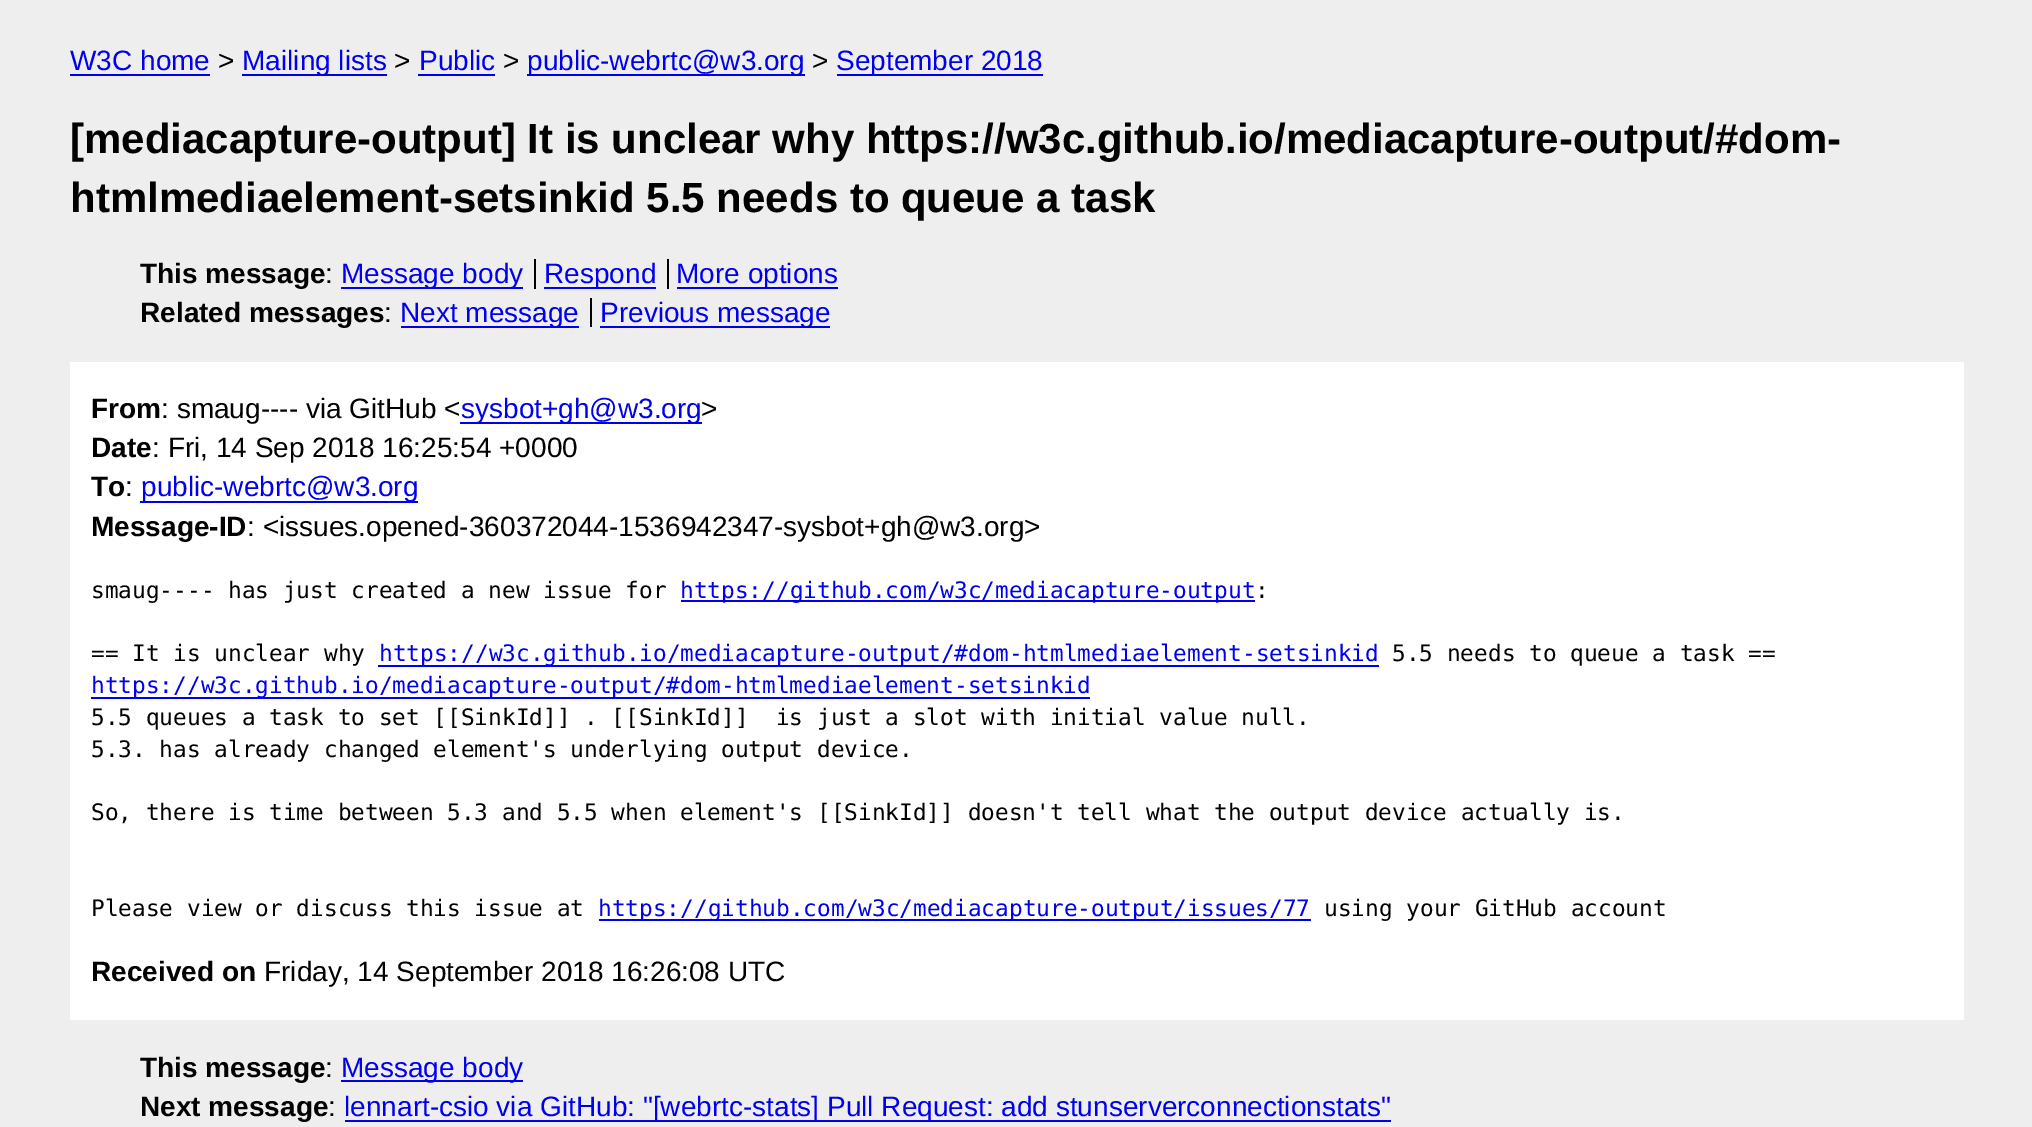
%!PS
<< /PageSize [2032 1127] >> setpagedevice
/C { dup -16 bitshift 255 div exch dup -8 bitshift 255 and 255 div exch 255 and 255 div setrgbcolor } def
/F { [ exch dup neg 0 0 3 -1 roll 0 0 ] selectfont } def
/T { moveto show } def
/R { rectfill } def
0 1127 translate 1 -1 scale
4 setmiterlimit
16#EEEEEE C
0 0 2032 1127 R
/LiberationSans-Regular 28 F
16#0000EE C
(W3C home) 70 70 T
70 74 140 2 R
16#000000 C
(>) 218 70 T
16#0000EE C
242 74 145 2 R
(Mailing lists) 242 70 T
16#000000 C
(>) 394 70 T
16#0000EE C
(Public) 419 70 T
418 74 77 2 R
16#000000 C
(>) 503 70 T
16#0000EE C
527 74 278 2 R
(public-webrtc@w3.org) 527 70 T
16#000000 C
(>) 812 70 T
16#0000EE C
837 74 206 2 R
(September 2018) 836 70 T
/LiberationSans-Bold 42 F
16#000000 C
([mediacapture-output] It is unclear why https://w3c.github.io/mediacapture-output/#dom-) 70 153 T
(htmlmediaelement-setsinkid 5.5 needs to queue a task) 70 212 T
/LiberationSans-Bold 28 F
(This message) 140 283 T
/LiberationSans-Regular 28 F
(:) 325 283 T
16#0000EE C
341 287 182 2 R
(Message body) 341 283 T
544 287 112 2 R
(Respond) 544 283 T
16#000000 C
534 259 2 30 R
16#0000EE C
677 287 161 2 R
(More options) 676 283 T
16#000000 C
667 259 2 30 R
/LiberationSans-Bold 28 F
(Related messages) 140 322 T
/LiberationSans-Regular 28 F
(:) 384 322 T
16#0000EE C
401 326 178 2 R
(Next message) 400 322 T
600 326 230 2 R
(Previous message) 600 322 T
16#000000 C
590 298 2 29 R
16#FFFFFF C
70 362 1894 658 R
/LiberationSans-Bold 28 F
16#000000 C
(From) 91 418 T
/LiberationSans-Regular 28 F
(: smaug---- via GitHub <) 161 418 T
16#0000EE C
460 422 242 2 R
(sysbot+gh@w3.org) 461 418 T
16#000000 C
(>) 701 418 T
/LiberationSans-Bold 28 F
(Date) 91 457 T
/LiberationSans-Regular 28 F
(: Fri, 14 Sep 2018 16:25:54 +0000) 152 457 T
/LiberationSans-Bold 28 F
(To) 91 496 T
/LiberationSans-Regular 28 F
(:) 125 496 T
16#0000EE C
140 501 278 2 R
(public-webrtc@w3.org) 141 496 T
/LiberationSans-Bold 28 F
16#000000 C
(Message-ID) 91 536 T
/LiberationSans-Regular 28 F
(: <issues.opened-360372044-1536942347-sysbot+gh@w3.org>) 247 536 T
/DejaVuSansMono-Regular 22.75 F
(smaug---- has just created a new issue for) 91 598 T
16#0000EE C
681 600 574 2 R
(https://github.com/w3c/mediacapture-output) 680 598 T
16#000000 C
(:) 1255 598 T
(== It is unclear why) 91 661 T
16#0000EE C
378 665 1001 2 R
(https://w3c.github.io/mediacapture-output/#dom-htmlmediaelement-setsinkid) 379 661 T
16#000000 C
(5.5 needs to queue a task ==) 1392 661 T
16#0000EE C
91 697 999 2 R
(https://w3c.github.io/mediacapture-output/#dom-htmlmediaelement-setsinkid) 91 693 T
16#000000 C
(5.5 queues a task to set [[SinkId]] . [[SinkId]]  is just a slot with initial value null.) 91 725 T
(5.3. has already changed element's underlying output device.) 91 757 T
(So, there is time between 5.3 and 5.5 when element's [[SinkId]] doesn't tell what the output device actually is.) 91 820 T
(Please view or discuss this issue at) 91 916 T
16#0000EE C
599 919 712 2 R
(https://github.com/w3c/mediacapture-output/issues/77) 598 916 T
16#000000 C
(using your GitHub account) 1324 916 T
/LiberationSans-Bold 28 F
(Received on) 91 981 T
/LiberationSans-Regular 28 F
(Friday, 14 September 2018 16:26:08 UTC) 264 981 T
/LiberationSans-Bold 28 F
(This message) 140 1077 T
/LiberationSans-Regular 28 F
(:) 325 1077 T
16#0000EE C
341 1080 182 2 R
(Message body) 341 1077 T
/LiberationSans-Bold 28 F
16#000000 C
(Next message) 140 1116 T
/LiberationSans-Regular 28 F
(:) 328 1116 T
16#0000EE C
345 1120 1046 2 R
(lennart-csio via GitHub: "[webrtc-stats] Pull Request: add stunserverconnectionstats") 344 1116 T
showpage
